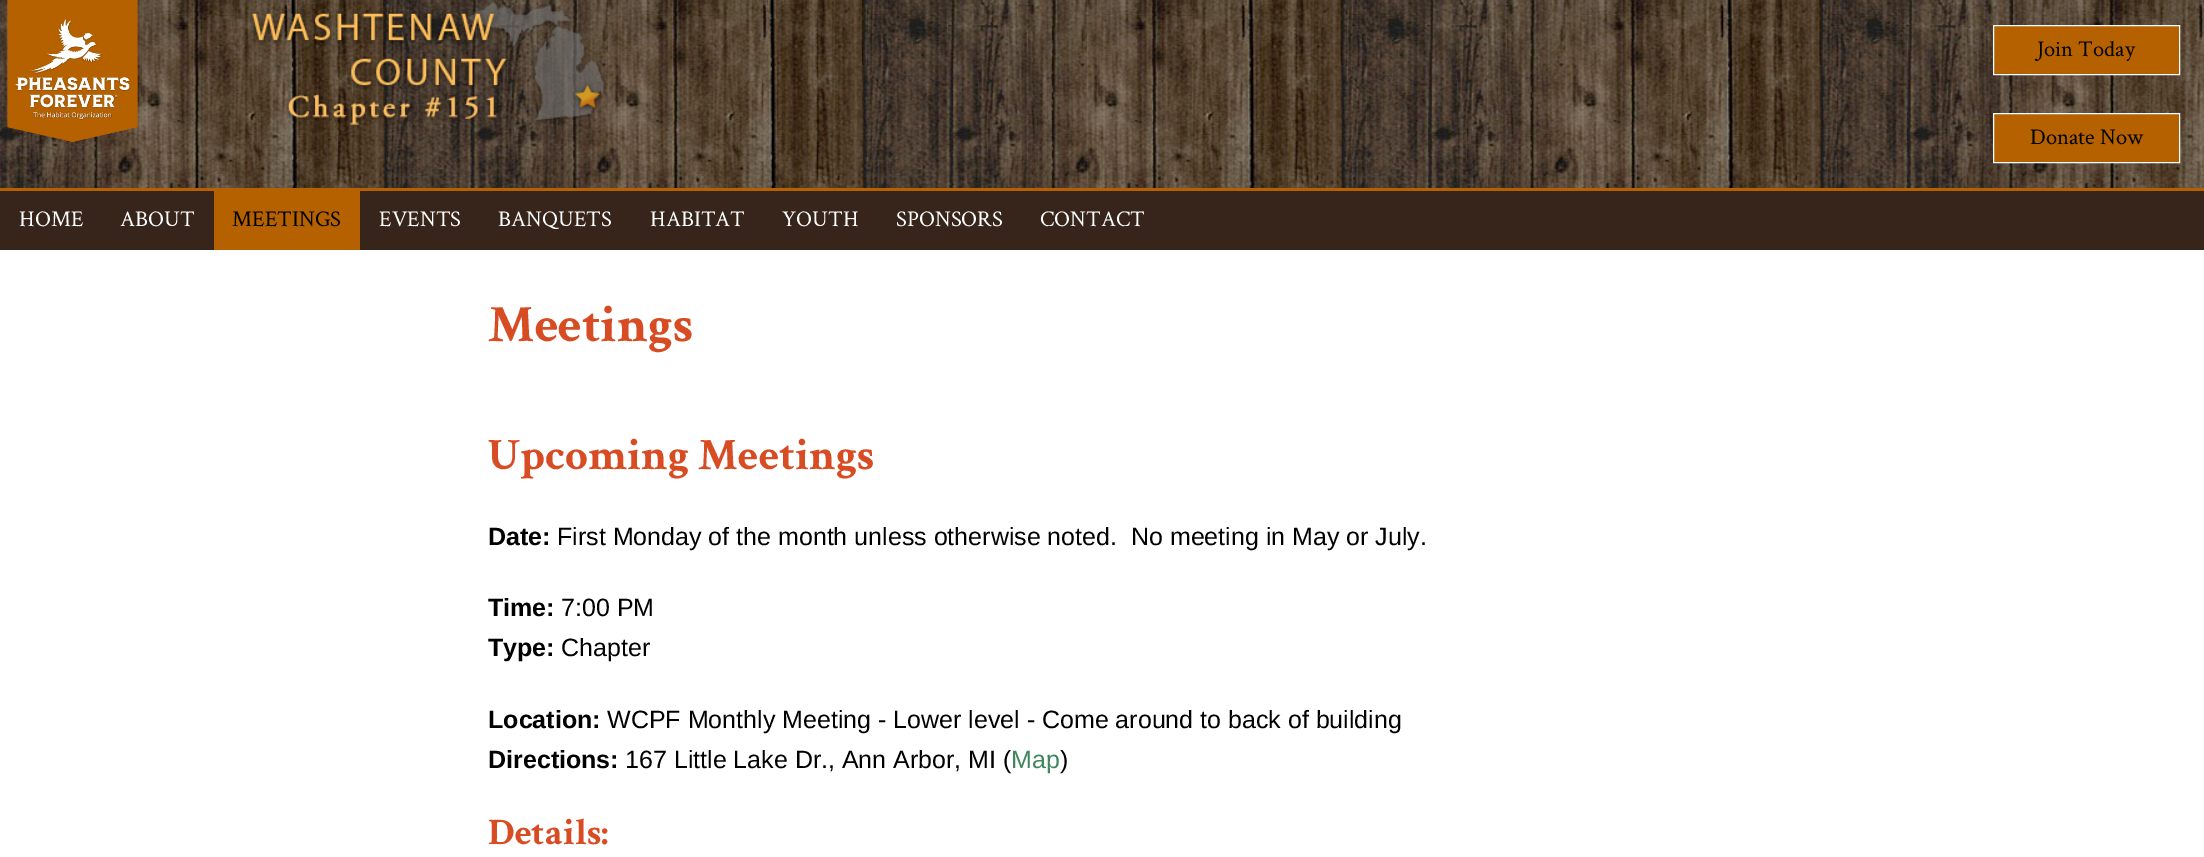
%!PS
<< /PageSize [2204 857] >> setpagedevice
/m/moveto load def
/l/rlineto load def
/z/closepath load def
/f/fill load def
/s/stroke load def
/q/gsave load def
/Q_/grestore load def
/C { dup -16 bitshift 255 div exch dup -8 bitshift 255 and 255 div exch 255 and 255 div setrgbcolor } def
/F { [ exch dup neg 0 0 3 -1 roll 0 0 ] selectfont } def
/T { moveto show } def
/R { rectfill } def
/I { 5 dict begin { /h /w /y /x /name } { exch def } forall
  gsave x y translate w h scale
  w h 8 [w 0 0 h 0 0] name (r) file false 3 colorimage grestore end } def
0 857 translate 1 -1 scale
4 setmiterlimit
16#FFFFFF C
0 0 2204 857 R
(1.rgb) 0 0 2204 188 I
(2.rgb) 7 0 131 142 I
(3.rgb) 250 1 357 128 I
16#B56100 C
1993.5 25.5 m 186 0 l 0 49 l -186 0 l z q f Q_
16#FFFFFF C
s
/CrimsonText-Regular 22.5 F
16#000000 C
(Join Today) 2037 56 T
16#B56100 C
1993.5 113.5 m 186 0 l 0 49 l -186 0 l z q f Q_
16#FFFFFF C
s
16#000000 C
(Donate Now) 2030 144 T
16#37251B C
0 191 2204 59 R
16#B56100 C
0 188 2204 3 R
16#FFFFFF C
(HOME) 19 226 T
(ABOUT) 120 226 T
16#B56100 C
214 191 146 59 R
16#000000 C
(MEETINGS) 232 226 T
16#FFFFFF C
(EVENTS) 379 226 T
(BANQUETS) 498 226 T
(HABITAT) 650 226 T
(YOUTH) 782 226 T
(SPONSORS) 896 226 T
(CONTACT) 1040 226 T
/CrimsonText-Bold 52.5 F
16#D84C24 C
(Meetings) 488 341 T
/CrimsonText-Bold 45 F
(Upcoming Meetings) 488 469 T
/LiberationSans-Bold 25 F
16#000000 C
(Date:) 488 545 T
/LiberationSans-Regular 25 F
(First Monday of the month unless otherwise noted.  No meeting in May or July.) 557 545 T
/LiberationSans-Bold 25 F
(Time:) 488 616 T
/LiberationSans-Regular 25 F
(7:00 PM) 561 616 T
/LiberationSans-Bold 25 F
(Type:) 488 656 T
/LiberationSans-Regular 25 F
(Chapter) 561 656 T
/LiberationSans-Bold 25 F
(Location:) 488 728 T
/LiberationSans-Regular 25 F
(WCPF Monthly Meeting - Lower level - Come around to back of building) 607 728 T
/LiberationSans-Bold 25 F
(Directions:) 488 768 T
/LiberationSans-Regular 25 F
(167 Little Lake Dr., Ann Arbor, MI \() 625 768 T
16#3F865D C
(Map) 1011 768 T
16#000000 C
(\)) 1060 768 T
/CrimsonText-Bold 37.5 F
16#D84C24 C
(Details:) 488 844 T
showpage
